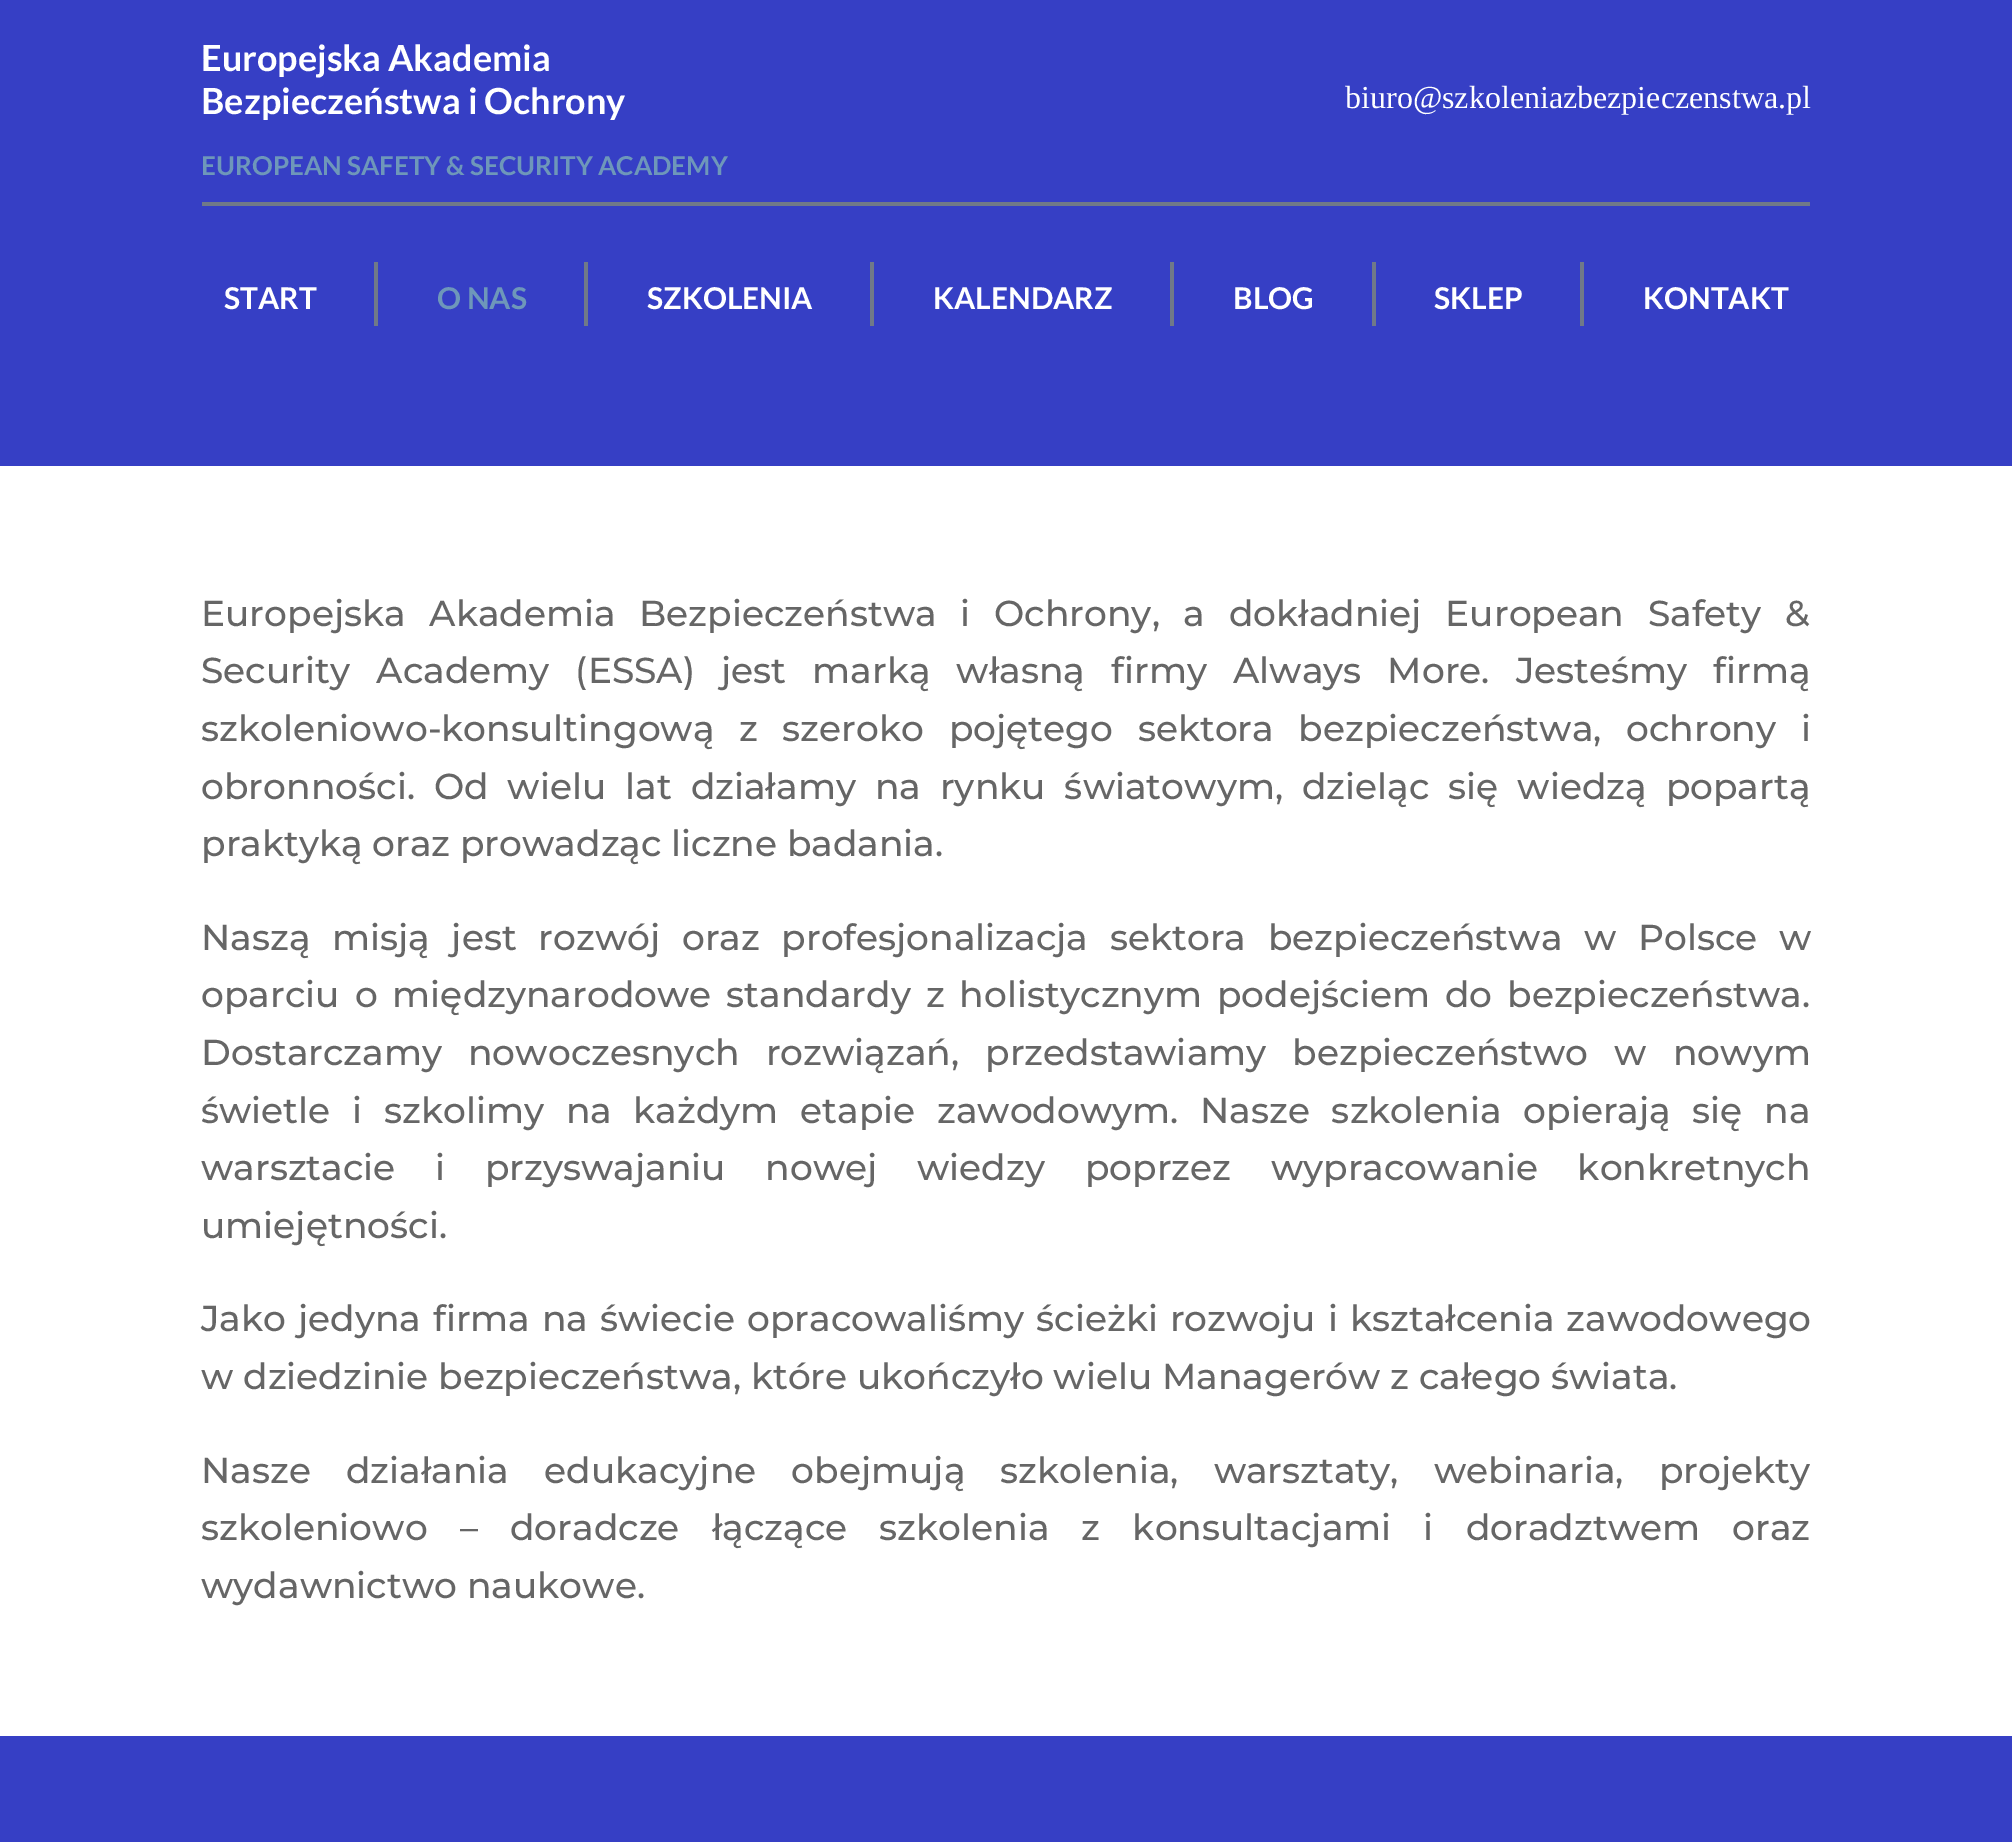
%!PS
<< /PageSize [2012 1842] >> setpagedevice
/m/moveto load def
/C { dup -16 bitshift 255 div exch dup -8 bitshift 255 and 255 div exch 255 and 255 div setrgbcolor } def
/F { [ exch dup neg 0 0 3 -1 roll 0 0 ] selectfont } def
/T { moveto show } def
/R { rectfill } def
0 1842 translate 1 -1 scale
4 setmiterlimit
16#FFFFFF C
0 0 2012 1842 R
16#363FC5 C
0 0 2012 466 R
16#707988 C
202 202 1608 4 R
/Lato-Bold 36 F
16#FFFFFF C
(Europejska Akademia) 201 71 T
(Bezpieczeństwa i Ochrony) 201 114 T
/Lato-Bold 26 F
16#6E97BA C
(EUROPEAN SAFETY & SECURITY ACADEMY) 201 175 T
/LiberationSerif-Regular 32 F
16#FFFFFF C
(biuro@szkoleniazbezpieczenstwa.pl) 1345 108 T
16#707988 C
374 262 4 64 R
/Lato-Bold 30 F
16#FFFFFF C
(START) 224 309 T
16#707988 C
584 262 4 64 R
16#6E97BA C
(O NAS) 437 309 T
16#707988 C
870 262 4 64 R
16#FFFFFF C
(SZKOLENIA) 647 309 T
16#707988 C
1170 262 4 64 R
16#FFFFFF C
(KALENDARZ) 933 309 T
16#707988 C
1372 262 4 64 R
16#FFFFFF C
(BLOG) 1233 309 T
16#707988 C
1580 262 4 64 R
16#FFFFFF C
(SKLEP) 1434 309 T
(KONTAKT) 1643 309 T
/Montserrat-Thin 36 F
16#666666 C
201 626 m 14 0 32 (Europejska Akademia Bezpieczeństwa i Ochrony, a dokładniej European Safety &) widthshow
201 683 m 16.4 0 32 (Security Academy \(ESSA\) jest marką własną firmy Always More. Jesteśmy firmą) widthshow
201 741 m 15 0 32 (szkoleniowo-konsultingową z szeroko pojętego sektora bezpieczeństwa, ochrony i) widthshow
201 799 m 9.25 0 32 (obronności. Od wielu lat działamy na rynku światowym, dzieląc się wiedzą popartą) widthshow
(praktyką oraz prowadząc liczne badania.) 201 856 T
201 950 m 12 0 32 (Naszą misją jest rozwój oraz profesjonalizacja sektora bezpieczeństwa w Polsce w) widthshow
201 1007 m 5.25 0 32 (oparciu o międzynarodowe standardy z holistycznym podejściem do bezpieczeństwa.) widthshow
201 1065 m 16.4 0 32 (Dostarczamy nowoczesnych rozwiązań, przedstawiamy bezpieczeństwo w nowym) widthshow
201 1123 m 12 0 32 (świetle i szkolimy na każdym etapie zawodowym. Nasze szkolenia opierają się na) widthshow
201 1180 m 30 0 32 (warsztacie i przyswajaniu nowej wiedzy poprzez wypracowanie konkretnych) widthshow
(umiejętności.) 201 1238 T
201 1331 m 2.25 0 32 (Jako jedyna firma na świecie opracowaliśmy ścieżki rozwoju i kształcenia zawodowego) widthshow
(w dziedzinie bezpieczeństwa, które ukończyło wielu Managerów z całego świata.) 201 1389 T
201 1483 m 25.5 0 32 (Nasze działania edukacyjne obejmują szkolenia, warsztaty, webinaria, projekty) widthshow
201 1540 m 22.5 0 32 (szkoleniowo – doradcze łączące szkolenia z konsultacjami i doradztwem oraz) widthshow
(wydawnictwo naukowe.) 201 1598 T
16#363FC5 C
0 1736 2012 106 R
showpage
